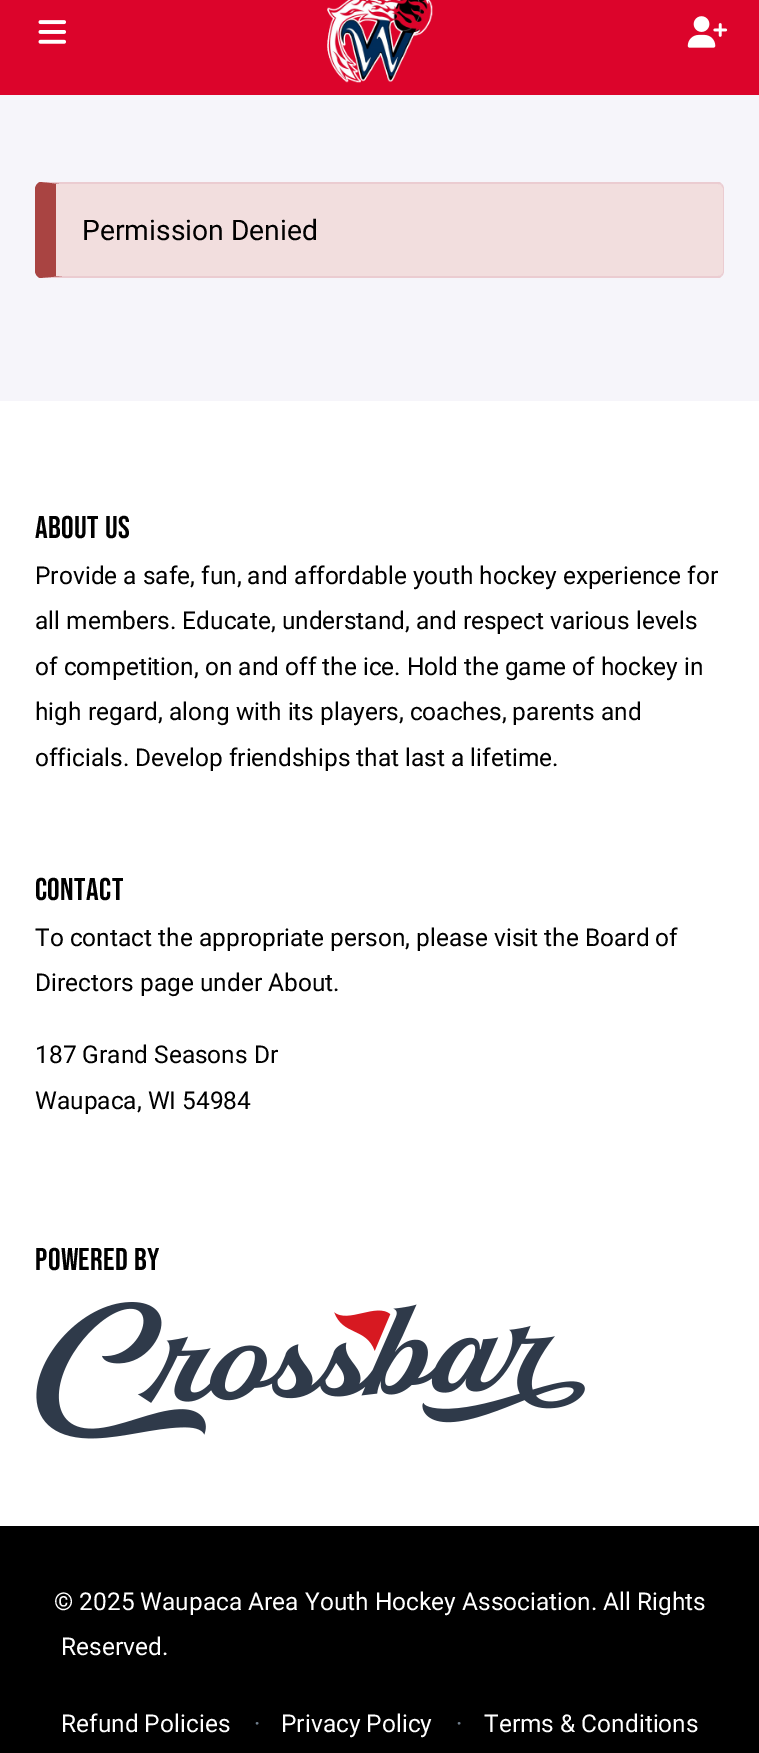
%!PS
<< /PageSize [759 1753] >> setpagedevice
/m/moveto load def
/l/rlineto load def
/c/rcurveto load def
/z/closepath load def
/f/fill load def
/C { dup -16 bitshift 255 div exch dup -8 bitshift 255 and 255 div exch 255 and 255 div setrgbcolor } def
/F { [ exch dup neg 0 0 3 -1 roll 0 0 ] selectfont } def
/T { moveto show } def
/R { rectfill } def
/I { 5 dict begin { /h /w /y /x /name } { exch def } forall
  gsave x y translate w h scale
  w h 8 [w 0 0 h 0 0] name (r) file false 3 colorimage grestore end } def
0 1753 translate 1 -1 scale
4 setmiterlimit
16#F6F5FA C
0 0 759 1753 R
16#DC042B C
0 0 759 95 R
(1.rgb) 38 20 28 24 I
(2.rgb) 327 0 106 83 I
(3.rgb) 687 16 41 32 I
16#F2DEDE C
56 184 m 662 0 l 2 0 5 2 5 5 c 0 82 l 0 3 -3 5 -5 5 c -662 0 l z f
16#EBCCD1 C
42 182 m -2 0 l 19 2 l 659 0 l 1 0 2 0 3 1 c 1 -1 l -1 -1 -2 -2 -4 -2 c z f
722 184 m 1 1 2 3 2 5 c 0 82 l 0 2 -1 4 -2 5 c -1 -1 l 1 -1 2 -2 2 -3 c 0 -84 l -2 -3 l z f
722 276 m -1 1 -2 2 -4 2 c -678 0 l 22 -2 l 656 0 l 1 0 2 0 3 -1 c z f
16#A94442 C
56 184 m 3 0 l -19 -2 l -3 1 -5 4 -5 7 c 0 82 l 0 3 2 6 5 7 c 22 -2 l -6 0 l z f
/Roboto-Regular 28.25 F
16#000000 C
(Permission Denied) 82 240 T
16#FFFFFF C
0 401 759 1125 R
/BebasNeue-Regular 31.5 F
16#000000 C
35 538 m .4 0 (ABOUT US) ashow
/Roboto-Regular 24.5 F
(Provide a safe, fun, and affordable youth hockey experience for) 35 584 T
(all members. Educate, understand, and respect various levels) 35 629 T
(of competition, on and off the ice. Hold the game of hockey in) 35 675 T
(high regard, along with its players, coaches, parents and) 35 720 T
(officials. Develop friendships that last a lifetime.) 35 766 T
/BebasNeue-Regular 31.5 F
35 900 m .4 0 (CONTACT) ashow
/Roboto-Regular 24.5 F
(To contact the appropriate person, please visit the Board of) 35 946 T
(Directors page under About.) 35 991 T
(187 Grand Seasons Dr) 35 1063 T
(Waupaca, WI 54984) 35 1109 T
/BebasNeue-Regular 31.5 F
35 1270 m .4 0 (POWERED BY) ashow
(4.rgb) 36 1302 549 137 I
0 1526 759 227 R
/Roboto-Regular 24.5 F
16#FFFFFF C
(© 2025 Waupaca Area Youth Hockey Association. All Rights) 54 1610 T
(Reserved.) 61 1655 T
(Refund Policies) 61 1732 T
16#707E8C C
(·) 254 1732 T
16#FFFFFF C
(Privacy Policy) 281 1732 T
16#707E8C C
(·) 456 1732 T
16#FFFFFF C
(Terms & Conditions) 484 1732 T
showpage
